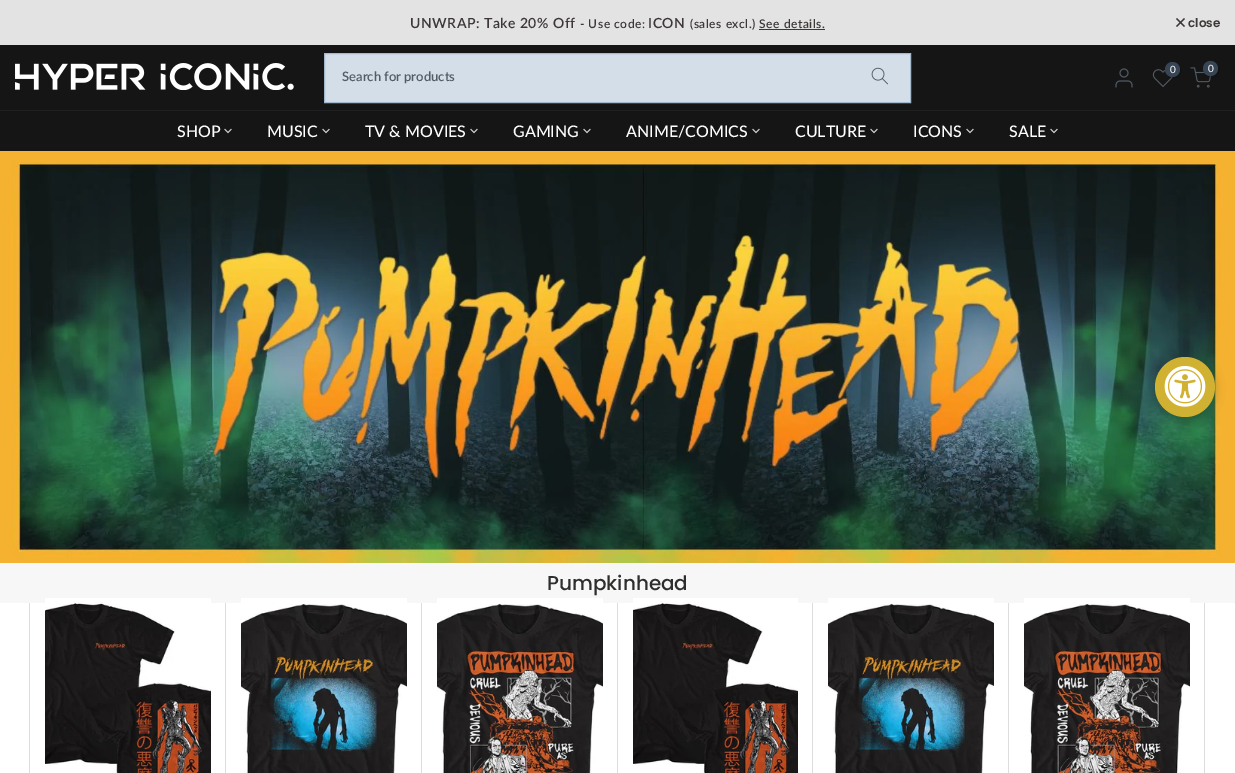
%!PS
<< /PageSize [1235 773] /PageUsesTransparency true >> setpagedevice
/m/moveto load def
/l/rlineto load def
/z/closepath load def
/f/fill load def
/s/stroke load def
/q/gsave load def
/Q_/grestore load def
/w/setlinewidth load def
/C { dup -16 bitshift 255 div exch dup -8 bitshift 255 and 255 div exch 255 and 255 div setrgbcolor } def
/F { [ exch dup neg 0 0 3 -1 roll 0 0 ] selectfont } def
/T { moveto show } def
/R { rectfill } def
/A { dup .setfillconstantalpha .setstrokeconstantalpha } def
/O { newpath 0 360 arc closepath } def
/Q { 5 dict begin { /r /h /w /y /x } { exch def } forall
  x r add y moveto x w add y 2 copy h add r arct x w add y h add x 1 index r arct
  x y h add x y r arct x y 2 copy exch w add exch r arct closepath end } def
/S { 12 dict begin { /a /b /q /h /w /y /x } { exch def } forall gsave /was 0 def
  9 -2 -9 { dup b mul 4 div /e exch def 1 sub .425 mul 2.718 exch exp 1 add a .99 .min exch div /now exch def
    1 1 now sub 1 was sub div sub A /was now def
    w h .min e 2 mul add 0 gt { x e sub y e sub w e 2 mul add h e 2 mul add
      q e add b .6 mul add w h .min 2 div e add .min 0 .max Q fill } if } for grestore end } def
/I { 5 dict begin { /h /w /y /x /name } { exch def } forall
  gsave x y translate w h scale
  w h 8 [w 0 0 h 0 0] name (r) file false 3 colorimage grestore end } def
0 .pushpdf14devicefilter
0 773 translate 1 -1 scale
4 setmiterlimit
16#FFFFFF C
0 0 1235 773 R
16#E3E3E3 C
0 0 1235 45 R
/Lato-SemiBold 14 F
16#3E3737 C
410 28 m .5 0 (UNWRAP: Take 20% Off) ashow
/Lato-SemiBold 12 F
580 28 m .5 0 (- Use code:) ashow
/Lato-SemiBold 14 F
648 28 m .5 0 (ICON) ashow
/Lato-SemiBold 12 F
690 28 m .5 0 (\(sales excl.\) See details.) ashow
759 29 66 1 R
1.1 w
1184.5 18.5 m -8 8 l 1184.5 26.5 m -8 -8 l s
/Poppins-SemiBold 12 F
(close) 1188 27 T
16#151515 C
0 45 1235 106 R
16#1E2021 C
0 110 1235 1 R
(1.rgb) 15 63 279 27 I
(2.rgb) 1115 68 18 20 I
(3.rgb) 1152 69 21 18 I
16#000000 C
1166 63 15 15 7.5 1.5 .3 S
16#364453 C
1172.5 69.5 7.5 O f
/Lato-Regular 10 F
16#FFFFFF C
(0) 1170 73 T
(4.rgb) 1190 67 22 21 I
16#000000 C
1204 62 15 15 7.5 1.5 .3 S
16#364453 C
1210.5 68.5 7.5 O f
16#FFFFFF C
(0) 1208 72 T
16#D4DEE8 C
324.5 53.5 m 586 0 l 0 49 l -586 0 l z q f Q_
16#A2B8CD C
1 w
s
/Lato-SemiBold 13 F
16#525C65 C
(Search for products) 342 81 T
(5.rgb) 871 67 17 18 I
/Lato-Medium 16 F
16#FFFFFF C
(SHOP) 177 137 T
16#D0D0D0 C
.8 w
2 setlinecap
231 129.5 m -3 3 l -3 -3 l s
16#FFFFFF C
(MUSIC) 267 137 T
16#D0D0D0 C
329 129.5 m -3 3 l -3 -3 l s
16#FFFFFF C
(TV & MOVIES) 365 137 T
16#D0D0D0 C
477 129.5 m -3 3 l -3 -3 l s
16#FFFFFF C
(GAMING) 513 137 T
16#D0D0D0 C
590 129.5 m -3 3 l -3 -3 l s
16#FFFFFF C
(ANIME/COMICS) 626 137 T
16#D0D0D0 C
759 129.5 m -3 3 l -3 -3 l s
16#FFFFFF C
(CULTURE) 795 137 T
16#D0D0D0 C
877 129.5 m -3 3 l -3 -3 l s
16#FFFFFF C
(ICONS) 913 137 T
16#D0D0D0 C
973 129.5 m -3 3 l -3 -3 l s
16#FFFFFF C
(SALE) 1009 137 T
16#D0D0D0 C
1057 129.5 m -3 3 l -3 -3 l s
(6.rgb) 0 151 1235 412 I
16#DDDDDD C
29 582 m 0 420 l 1 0 l 0 -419 l 195 0 l 0 -1 l z f
225 582 m 0 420 l 1 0 l 0 -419 l 195 0 l 0 -1 l z f
421 582 m 0 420 l 1 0 l 0 -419 l 195 0 l 0 -1 l z f
617 582 m 0 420 l 1 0 l 0 -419 l 194 0 l 0 -1 l z f
812 582 m 0 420 l 1 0 l 0 -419 l 195 0 l 0 -1 l z f
1008 582 m 0 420 l 1 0 l 0 -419 l 195 0 l 0 -1 l z f
q
1009 583 196 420 rectclip
910 484 m 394 0 l 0 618 l -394 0 l z 1008 582 m 196 0 l 0 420 l -196 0 l z eofill
Q_
16#F7F7F7 C
0 563 1235 40 R
/Poppins-Medium 20 F
16#302D2D C
(Pumpkinhead) 547 590 T
(7.rgb) 45 598 166 175 I
(8.rgb) 241 598 166 175 I
(9.rgb) 437 598 166 175 I
(10.rgb) 633 598 165 175 I
(11.rgb) 828 598 166 175 I
(12.rgb) 1024 598 166 175 I
16#000000 C
1155 359 60 60 30 5 .2 S
16#D1B131 C
1185 387 30 O f
(13.rgb) 1164 366 42 41 I
.poppdf14devicefilter showpage
